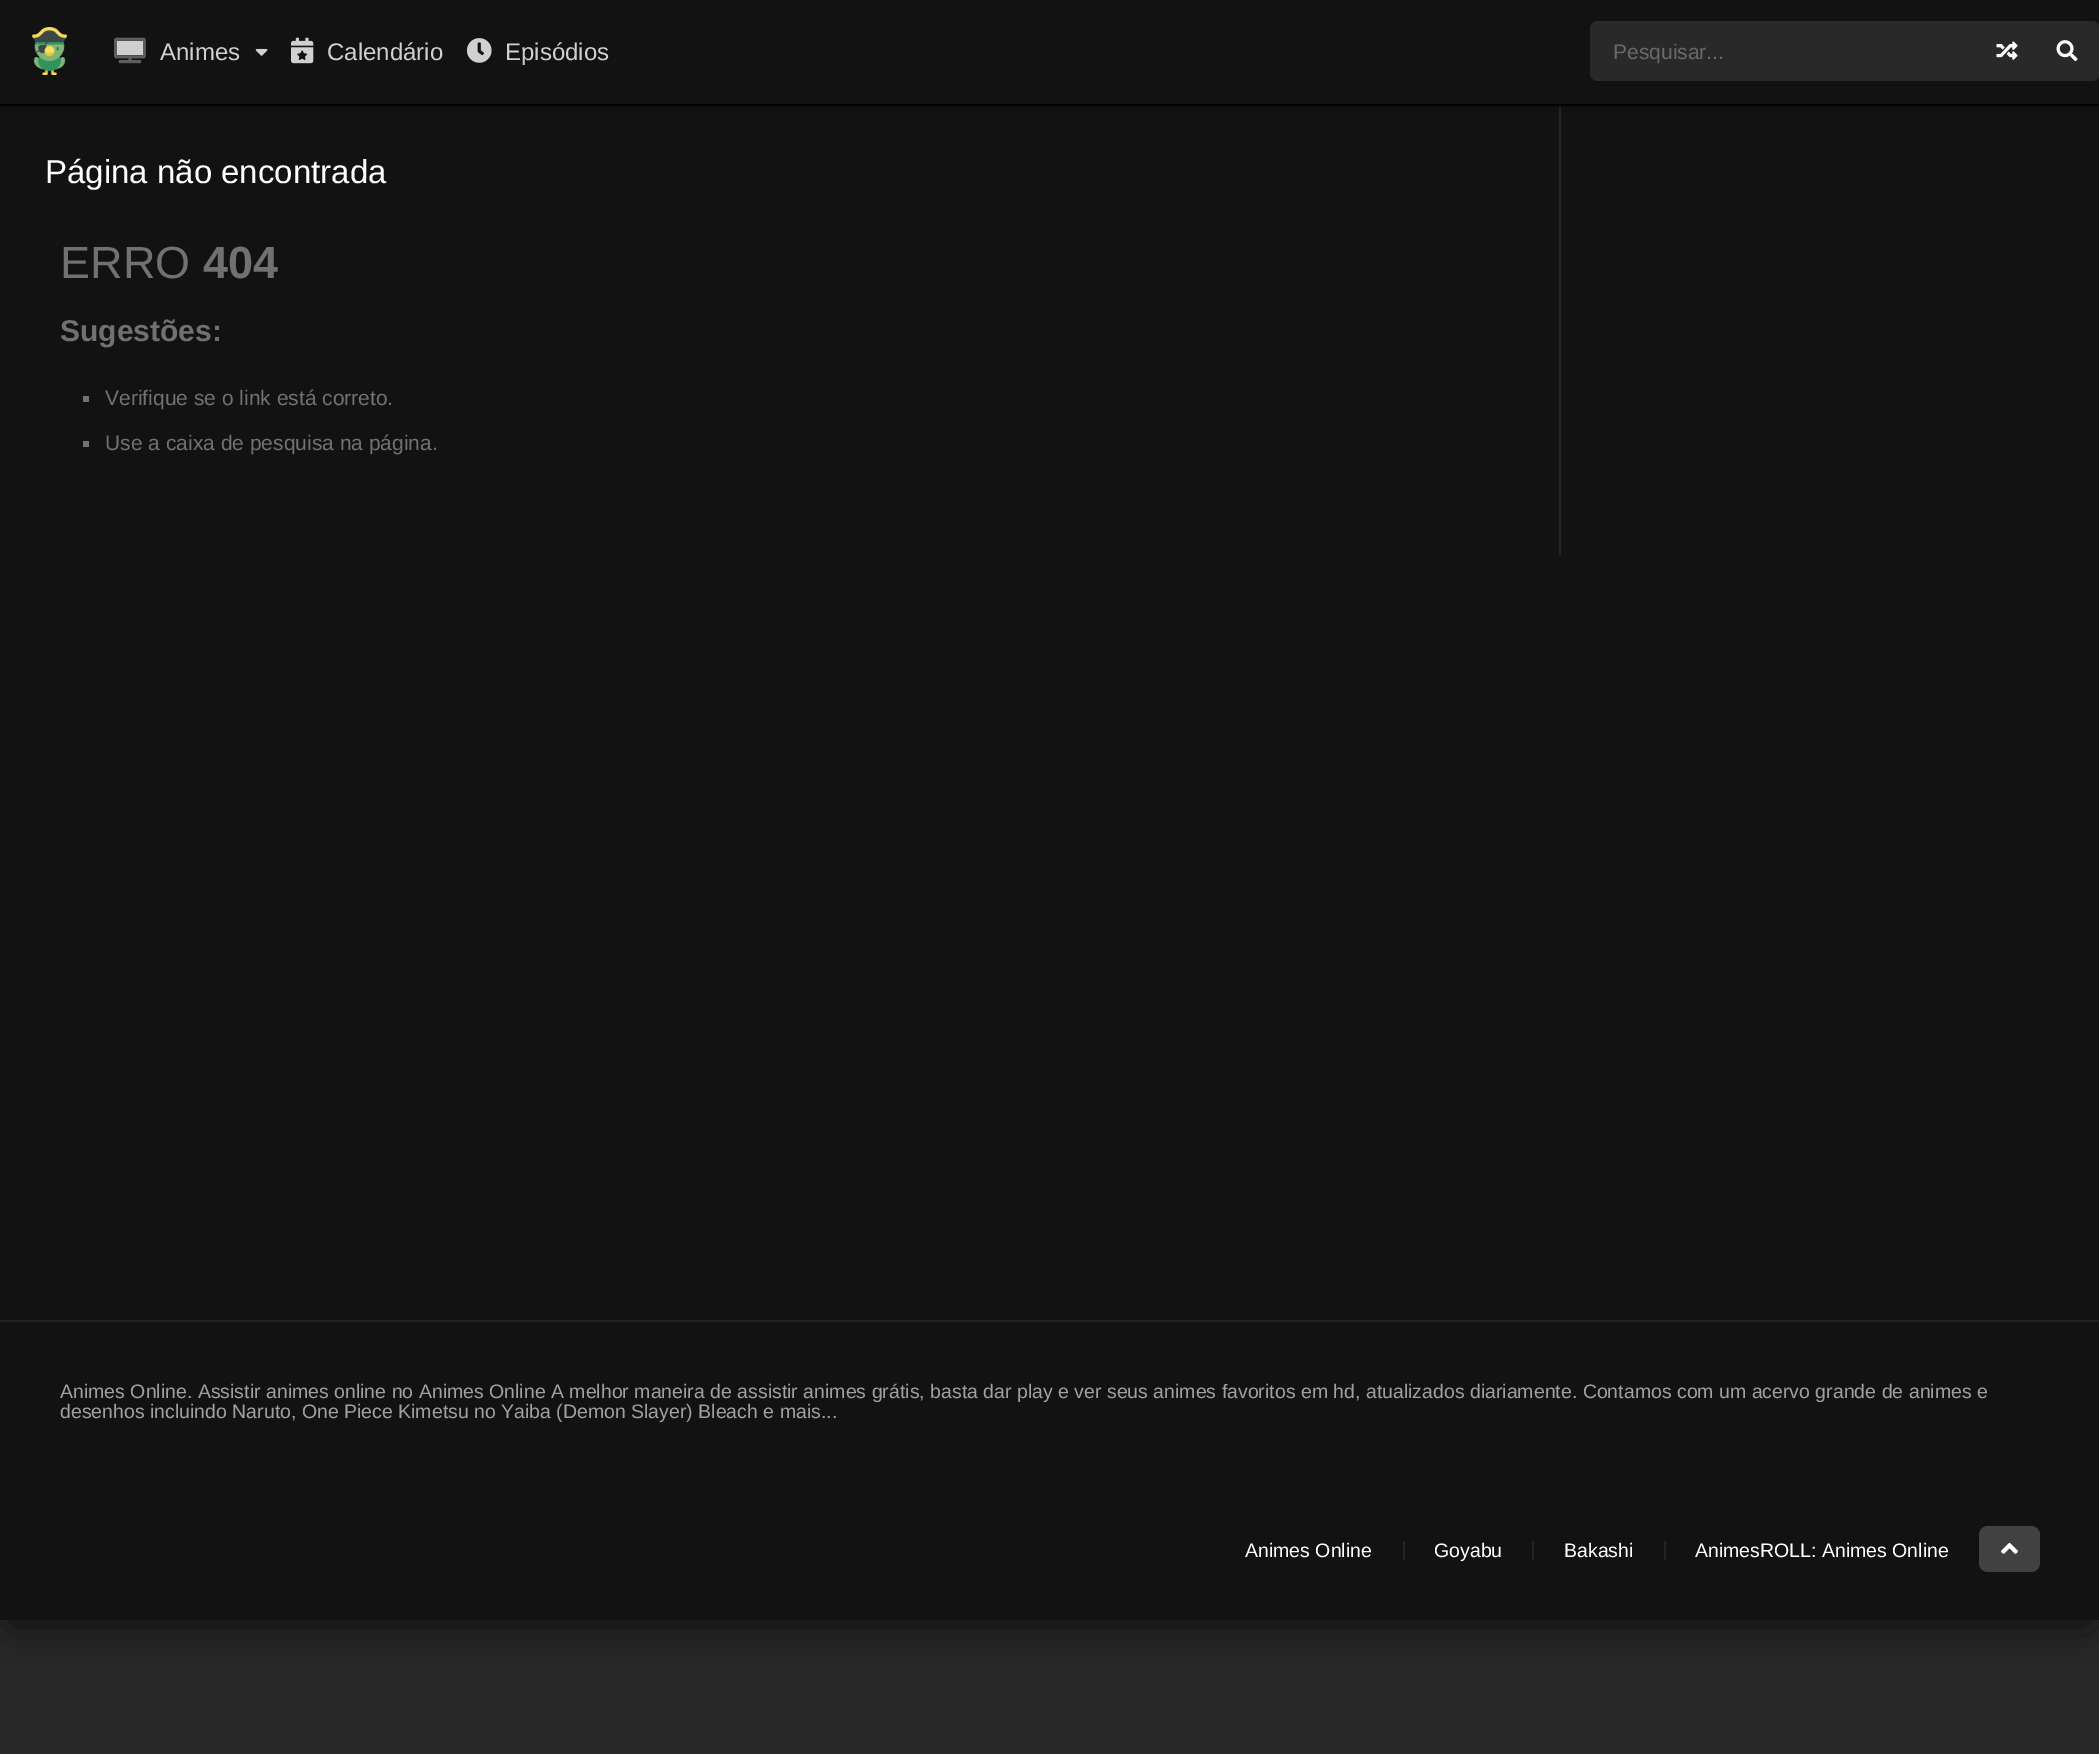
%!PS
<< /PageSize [2099 1754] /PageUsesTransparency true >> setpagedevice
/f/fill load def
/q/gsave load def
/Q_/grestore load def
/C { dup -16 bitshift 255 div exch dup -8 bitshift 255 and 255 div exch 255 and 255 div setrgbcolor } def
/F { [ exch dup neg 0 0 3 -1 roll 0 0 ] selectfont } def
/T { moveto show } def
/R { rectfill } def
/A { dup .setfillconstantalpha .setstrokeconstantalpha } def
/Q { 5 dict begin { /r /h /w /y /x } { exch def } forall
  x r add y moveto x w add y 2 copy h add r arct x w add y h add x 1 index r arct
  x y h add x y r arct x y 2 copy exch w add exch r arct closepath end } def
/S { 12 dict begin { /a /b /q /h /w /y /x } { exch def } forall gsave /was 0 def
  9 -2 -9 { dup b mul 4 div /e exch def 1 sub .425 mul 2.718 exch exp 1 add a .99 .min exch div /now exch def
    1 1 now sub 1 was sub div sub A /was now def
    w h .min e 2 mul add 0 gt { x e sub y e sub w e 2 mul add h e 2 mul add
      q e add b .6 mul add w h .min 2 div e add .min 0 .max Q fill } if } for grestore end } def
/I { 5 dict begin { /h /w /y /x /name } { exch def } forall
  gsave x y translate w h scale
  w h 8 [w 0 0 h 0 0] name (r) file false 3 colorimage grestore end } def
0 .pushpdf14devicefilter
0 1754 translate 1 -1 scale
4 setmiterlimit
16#282828 C
0 0 2099 1754 R
16#121212 C
0 0 2099 104 R
0 106 2099 1214 R
16#252525 C
1559 105 2 450 R
q
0 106 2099 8 rectclip
16#000000 C
0 2 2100 105 0 4 .4 S
Q_
16#000000 C
0 104 2099 2 R
(1.rgb) 32 27 35 48 I
16#D0D0D0 C
117 41 26 14 R
(2.rgb) 114 37 32 27 I
/LiberationSans-Regular 24 F
(Animes) 160 60 T
(3.rgb) 255 48 13 8 I
(4.rgb) 291 37 23 27 I
(Calendário) 327 60 T
(5.rgb) 466 38 26 25 I
(Episódios) 505 60 T
16#292929 C
1590 21 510 60 8 Q f
/LiberationSans-Regular 21 F
16#696969 C
(Pesquisar...) 1613 59 T
(6.rgb) 1996 41 22 19 I
(7.rgb) 2056 40 22 22 I
16#232323 C
0 1320 2099 2 R
/LiberationSans-Regular 33 F
16#FFFFFF C
(Página não encontrada) 45 183 T
/LiberationSans-Regular 45 F
16#717171 C
(ERRO) 60 278 T
/LiberationSans-Bold 45 F
(404) 203 278 T
/LiberationSans-Bold 30 F
(Sugestões:) 60 341 T
83 396 6 6 R
/LiberationSans-Regular 21 F
(Verifique se o link está correto.) 105 405 T
83 441 6 6 R
(Use a caixa de pesquisa na página.) 105 450 T
16#000000 C
11 1347 2079 278 0 19 .7 S
16#121212 C
0 1322 2099 298 R
/LiberationSans-Regular 19.5 F
16#A0A0A0 C
(Animes Online. Assistir animes online no Animes Online A melhor maneira de assistir animes grátis, basta dar play e ver seus animes favoritos em hd, atualizados diariamente. Contamos com um acervo grande de animes e) 60 1398 T
(desenhos incluindo Naruto, One Piece Kimetsu no Yaiba \(Demon Slayer\) Bleach e mais...) 60 1418 T
16#FFFFFF C
(Animes Online) 1245 1557 T
16#252525 C
1403 1541 2 19 R
16#FFFFFF C
(Goyabu) 1434 1557 T
16#252525 C
1532 1541 2 19 R
16#FFFFFF C
(Bakashi) 1564 1557 T
16#252525 C
1664 1541 2 19 R
16#FFFFFF C
(AnimesROLL: Animes Online) 1695 1557 T
16#414141 C
1979 1526 61 46 9 Q f
(8.rgb) 2001 1543 17 11 I
.poppdf14devicefilter showpage
